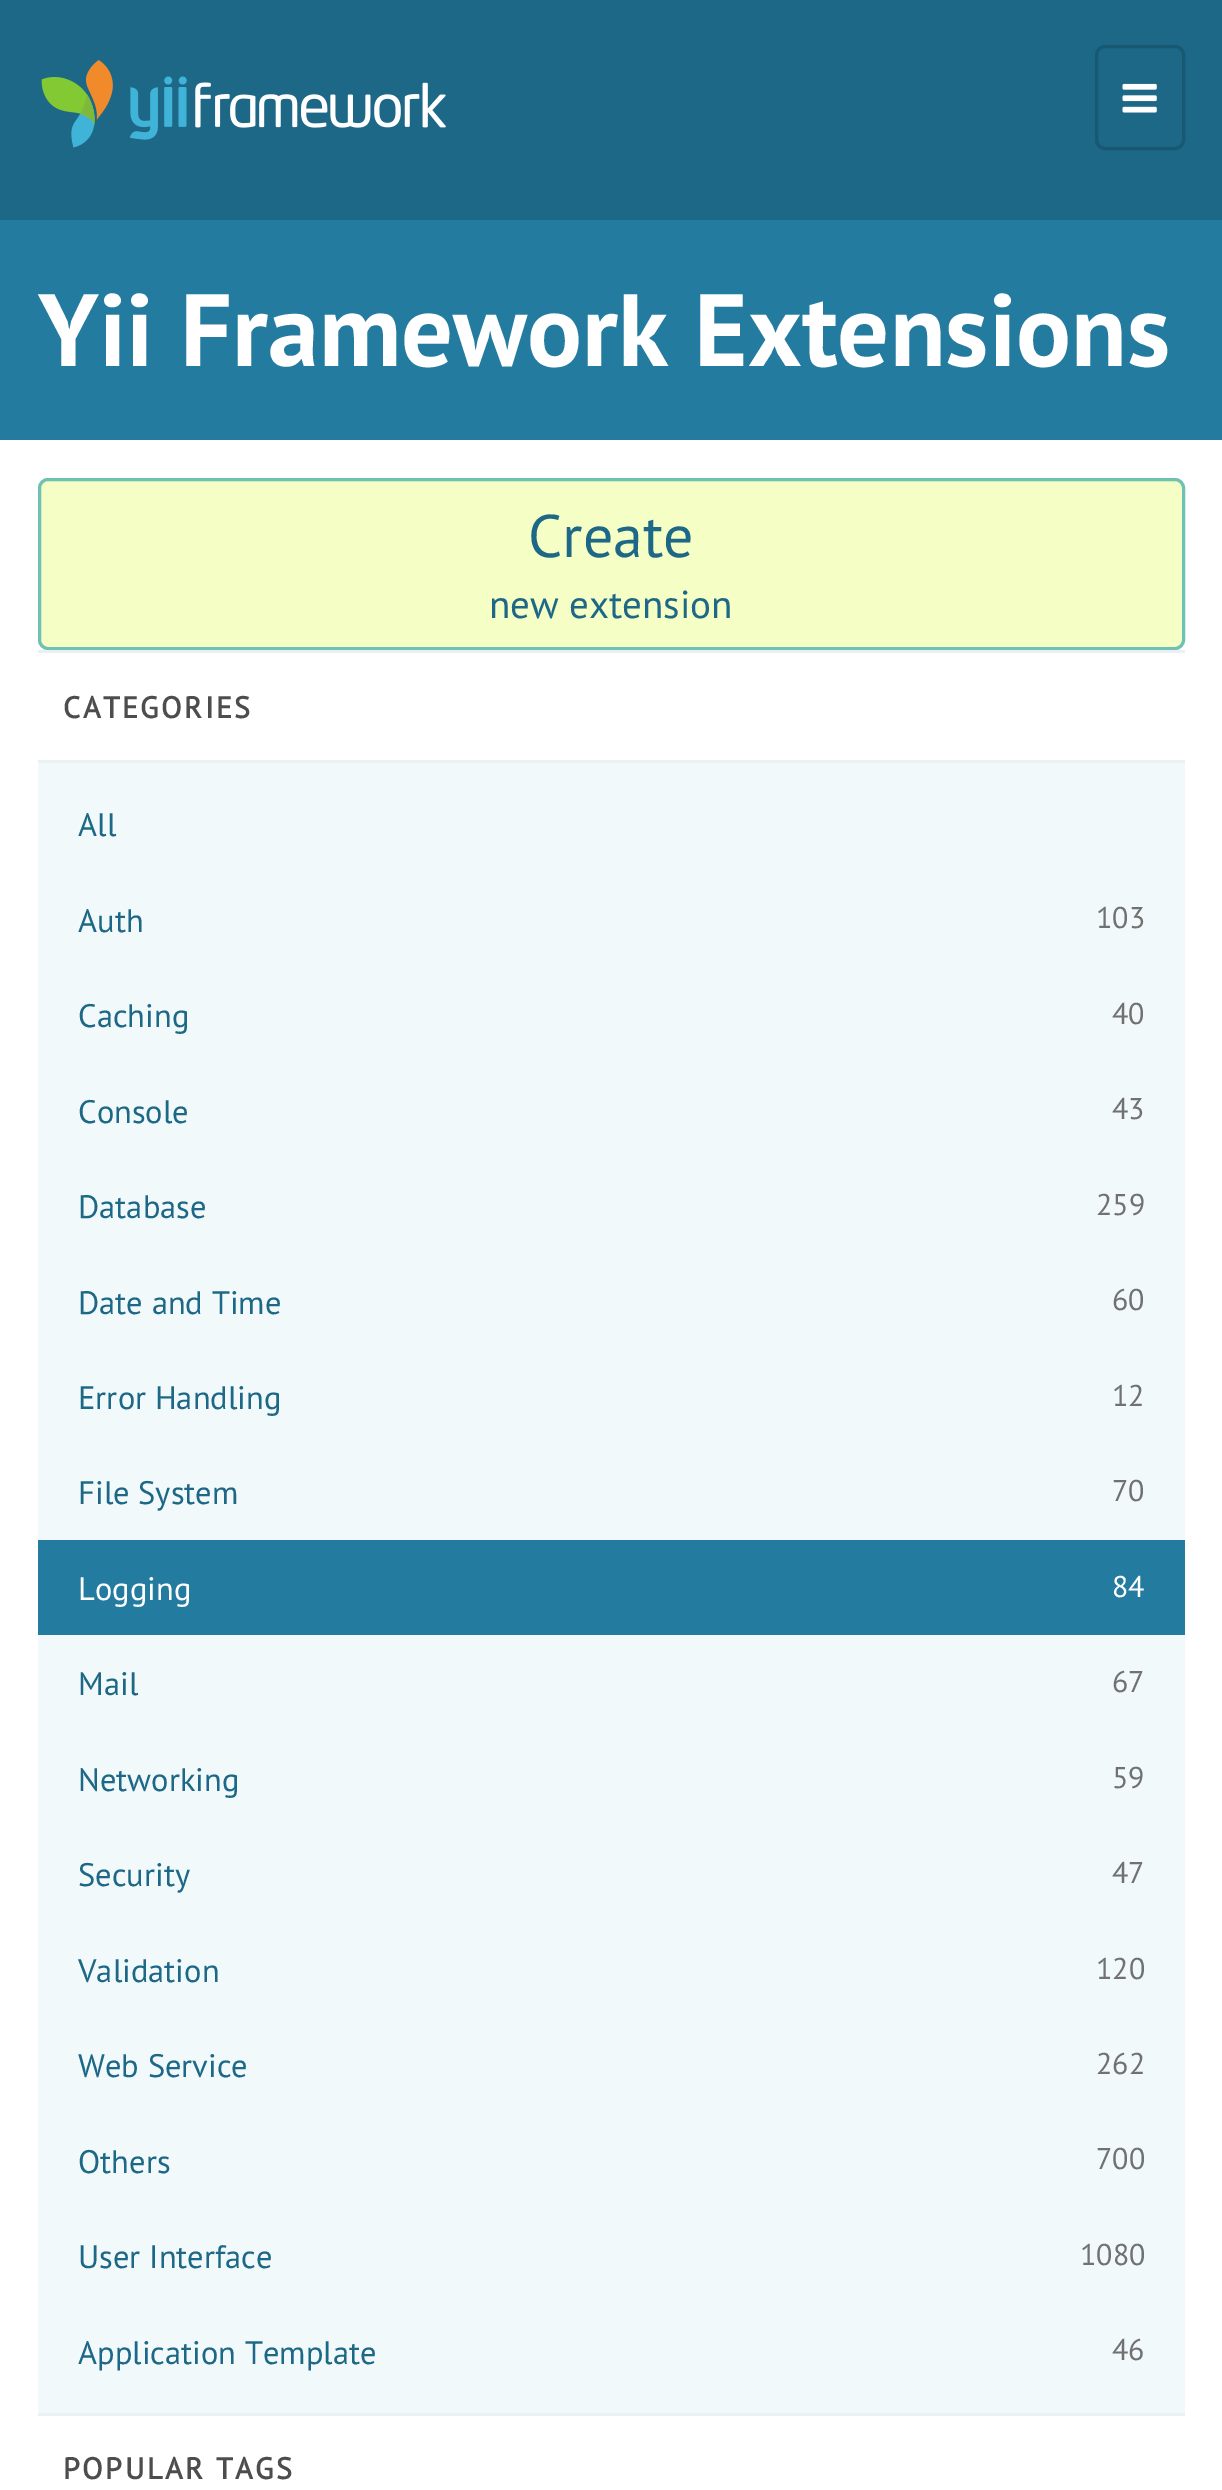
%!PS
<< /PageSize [1222 2490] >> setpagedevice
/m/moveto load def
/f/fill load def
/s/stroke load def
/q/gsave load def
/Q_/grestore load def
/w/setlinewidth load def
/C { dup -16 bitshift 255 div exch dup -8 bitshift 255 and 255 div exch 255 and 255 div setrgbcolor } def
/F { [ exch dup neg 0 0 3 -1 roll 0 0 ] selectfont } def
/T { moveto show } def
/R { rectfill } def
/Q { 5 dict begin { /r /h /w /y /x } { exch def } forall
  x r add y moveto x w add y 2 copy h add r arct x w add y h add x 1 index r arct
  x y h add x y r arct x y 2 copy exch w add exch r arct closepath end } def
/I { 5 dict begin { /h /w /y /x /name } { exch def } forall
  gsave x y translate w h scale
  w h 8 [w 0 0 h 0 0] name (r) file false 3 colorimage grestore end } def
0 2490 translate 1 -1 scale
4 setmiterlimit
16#FFFFFF C
0 0 1222 2490 R
16#1E6887 C
0 0 1222 220 R
(1.rgb) 41 60 405 88 I
16#195872 C
3 w
1096.5 46.5 87 102 8.5 Q s
(2.rgb) 1122 83 35 30 I
16#247BA0 C
0 220 1222 220 R
/PTSans-Bold 102.5 F
16#FFFFFF C
(Yii Framework Extensions) 38 366 T
16#F5FEC4 C
39.5 479.5 1144 169 8.5 Q q f Q_
16#70C1B3 C
s
/PTSans-Regular 60 F
16#1E6887 C
(Create) 528 557 T
/PTSans-Regular 39 F
(new extension) 489 618 T
16#EBF1F2 C
38 650 1147 3 R
38 760 1147 3 R
/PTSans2-Bold 30 F
16#4D4D4D C
63 718 m 2.5 0 (CATEGORIES) ashow
16#F2F9FA C
38 763 1147 1650 R
/PTSans-Regular 32.5 F
16#1E6887 C
(All) 78 836 T
(Auth) 78 932 T
/PTSans-Regular 30 F
16#717171 C
(103) 1096 928 T
/PTSans-Regular 32.5 F
16#1E6887 C
(Caching) 78 1027 T
/PTSans-Regular 30 F
16#717171 C
(40) 1112 1024 T
/PTSans-Regular 32.5 F
16#1E6887 C
(Console) 78 1123 T
/PTSans-Regular 30 F
16#717171 C
(43) 1112 1119 T
/PTSans-Regular 32.5 F
16#1E6887 C
(Database) 78 1218 T
/PTSans-Regular 30 F
16#717171 C
(259) 1096 1215 T
/PTSans-Regular 32.5 F
16#1E6887 C
(Date and Time) 78 1314 T
/PTSans-Regular 30 F
16#717171 C
(60) 1112 1310 T
/PTSans-Regular 32.5 F
16#1E6887 C
(Error Handling) 78 1409 T
/PTSans-Regular 30 F
16#717171 C
(12) 1112 1406 T
/PTSans-Regular 32.5 F
16#1E6887 C
(File System) 78 1504 T
/PTSans-Regular 30 F
16#717171 C
(70) 1112 1501 T
16#247BA0 C
38 1540 1147 95 R
/PTSans-Regular 32.5 F
16#FFFFFF C
(Logging) 78 1600 T
/PTSans-Regular 30 F
(84) 1112 1597 T
/PTSans-Regular 32.5 F
16#1E6887 C
(Mail) 78 1695 T
/PTSans-Regular 30 F
16#717171 C
(67) 1112 1692 T
/PTSans-Regular 32.5 F
16#1E6887 C
(Networking) 78 1791 T
/PTSans-Regular 30 F
16#717171 C
(59) 1112 1788 T
/PTSans-Regular 32.5 F
16#1E6887 C
(Security) 78 1886 T
/PTSans-Regular 30 F
16#717171 C
(47) 1112 1883 T
/PTSans-Regular 32.5 F
16#1E6887 C
(Validation) 78 1982 T
/PTSans-Regular 30 F
16#717171 C
(120) 1096 1979 T
/PTSans-Regular 32.5 F
16#1E6887 C
(Web Service) 78 2077 T
/PTSans-Regular 30 F
16#717171 C
(262) 1096 2074 T
/PTSans-Regular 32.5 F
16#1E6887 C
(Others) 78 2173 T
/PTSans-Regular 30 F
16#717171 C
(700) 1096 2169 T
/PTSans-Regular 32.5 F
16#1E6887 C
(User Interface) 78 2268 T
/PTSans-Regular 30 F
16#717171 C
(1080) 1080 2265 T
/PTSans-Regular 32.5 F
16#1E6887 C
(Application Template) 78 2364 T
/PTSans-Regular 30 F
16#717171 C
(46) 1112 2360 T
16#EBF1F2 C
38 2413 1147 3 R
/PTSans2-Bold 30 F
16#4D4D4D C
63 2479 m 2.5 0 (POPULAR TAGS) ashow
showpage
